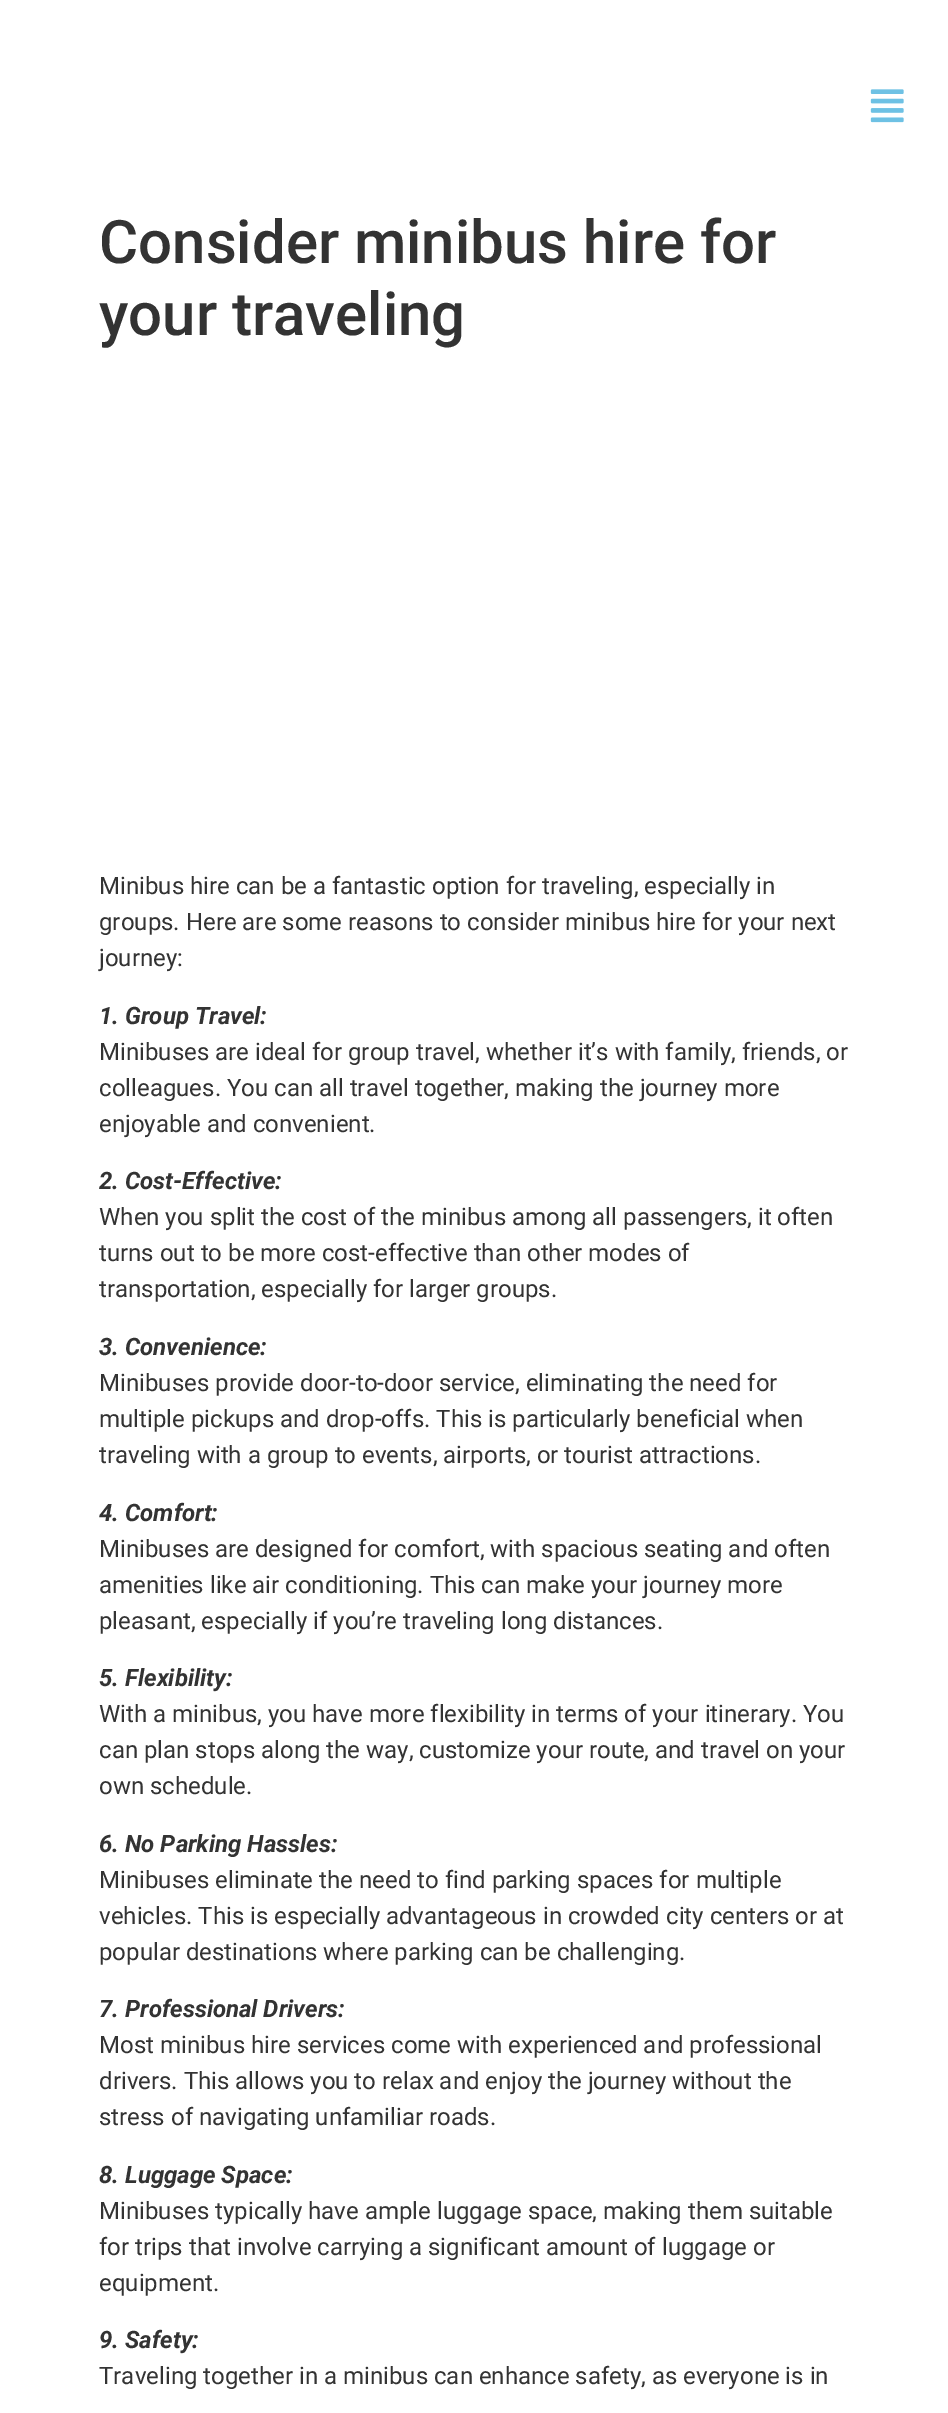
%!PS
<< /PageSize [948 2413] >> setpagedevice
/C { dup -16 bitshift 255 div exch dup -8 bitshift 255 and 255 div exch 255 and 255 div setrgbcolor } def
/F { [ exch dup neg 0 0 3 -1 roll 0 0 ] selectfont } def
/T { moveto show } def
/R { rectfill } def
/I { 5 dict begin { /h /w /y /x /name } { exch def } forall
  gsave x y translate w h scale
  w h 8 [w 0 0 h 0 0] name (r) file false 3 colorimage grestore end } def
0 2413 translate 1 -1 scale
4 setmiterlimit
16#FFFFFF C
0 0 948 2413 R
(1.rgb) 870 89 34 34 I
/Roboto-Medium 60 F
16#333333 C
(Consider minibus hire for) 99 263 T
(your traveling) 99 335 T
/Roboto-Regular 24 F
(Minibus hire can be a fantastic option for traveling, especially in) 99 894 T
(groups. Here are some reasons to consider minibus hire for your next) 99 930 T
(journey:) 99 966 T
/Roboto-BoldItalic 24 F
(1. Group Travel:) 99 1024 T
/Roboto-Regular 24 F
(Minibuses are ideal for group travel, whether it’s with family, friends, or) 99 1060 T
(colleagues. You can all travel together, making the journey more) 99 1096 T
(enjoyable and convenient.) 99 1132 T
/Roboto-BoldItalic 24 F
(2. Cost-Effective:) 99 1189 T
/Roboto-Regular 24 F
(When you split the cost of the minibus among all passengers, it often) 99 1225 T
(turns out to be more cost-effective than other modes of) 99 1261 T
(transportation, especially for larger groups.) 99 1297 T
/Roboto-BoldItalic 24 F
(3. Convenience:) 99 1355 T
/Roboto-Regular 24 F
(Minibuses provide door-to-door service, eliminating the need for) 99 1391 T
(multiple pickups and drop-offs. This is particularly beneficial when) 99 1427 T
(traveling with a group to events, airports, or tourist attractions.) 99 1463 T
/Roboto-BoldItalic 24 F
(4. Comfort:) 99 1521 T
/Roboto-Regular 24 F
(Minibuses are designed for comfort, with spacious seating and often) 99 1557 T
(amenities like air conditioning. This can make your journey more) 99 1593 T
(pleasant, especially if you’re traveling long distances.) 99 1629 T
/Roboto-BoldItalic 24 F
(5. Flexibility:) 99 1686 T
/Roboto-Regular 24 F
(With a minibus, you have more flexibility in terms of your itinerary. You) 99 1722 T
(can plan stops along the way, customize your route, and travel on your) 99 1758 T
(own schedule.) 99 1794 T
/Roboto-BoldItalic 24 F
(6. No Parking Hassles:) 99 1852 T
/Roboto-Regular 24 F
(Minibuses eliminate the need to find parking spaces for multiple) 99 1888 T
(vehicles. This is especially advantageous in crowded city centers or at) 99 1924 T
(popular destinations where parking can be challenging.) 99 1960 T
/Roboto-BoldItalic 24 F
(7. Professional Drivers:) 99 2017 T
/Roboto-Regular 24 F
(Most minibus hire services come with experienced and professional) 99 2053 T
(drivers. This allows you to relax and enjoy the journey without the) 99 2089 T
(stress of navigating unfamiliar roads.) 99 2125 T
/Roboto-BoldItalic 24 F
(8. Luggage Space:) 99 2183 T
/Roboto-Regular 24 F
(Minibuses typically have ample luggage space, making them suitable) 99 2219 T
(for trips that involve carrying a significant amount of luggage or) 99 2255 T
(equipment.) 99 2291 T
/Roboto-BoldItalic 24 F
(9. Safety:) 99 2348 T
/Roboto-Regular 24 F
(Traveling together in a minibus can enhance safety, as everyone is in) 99 2384 T
showpage
